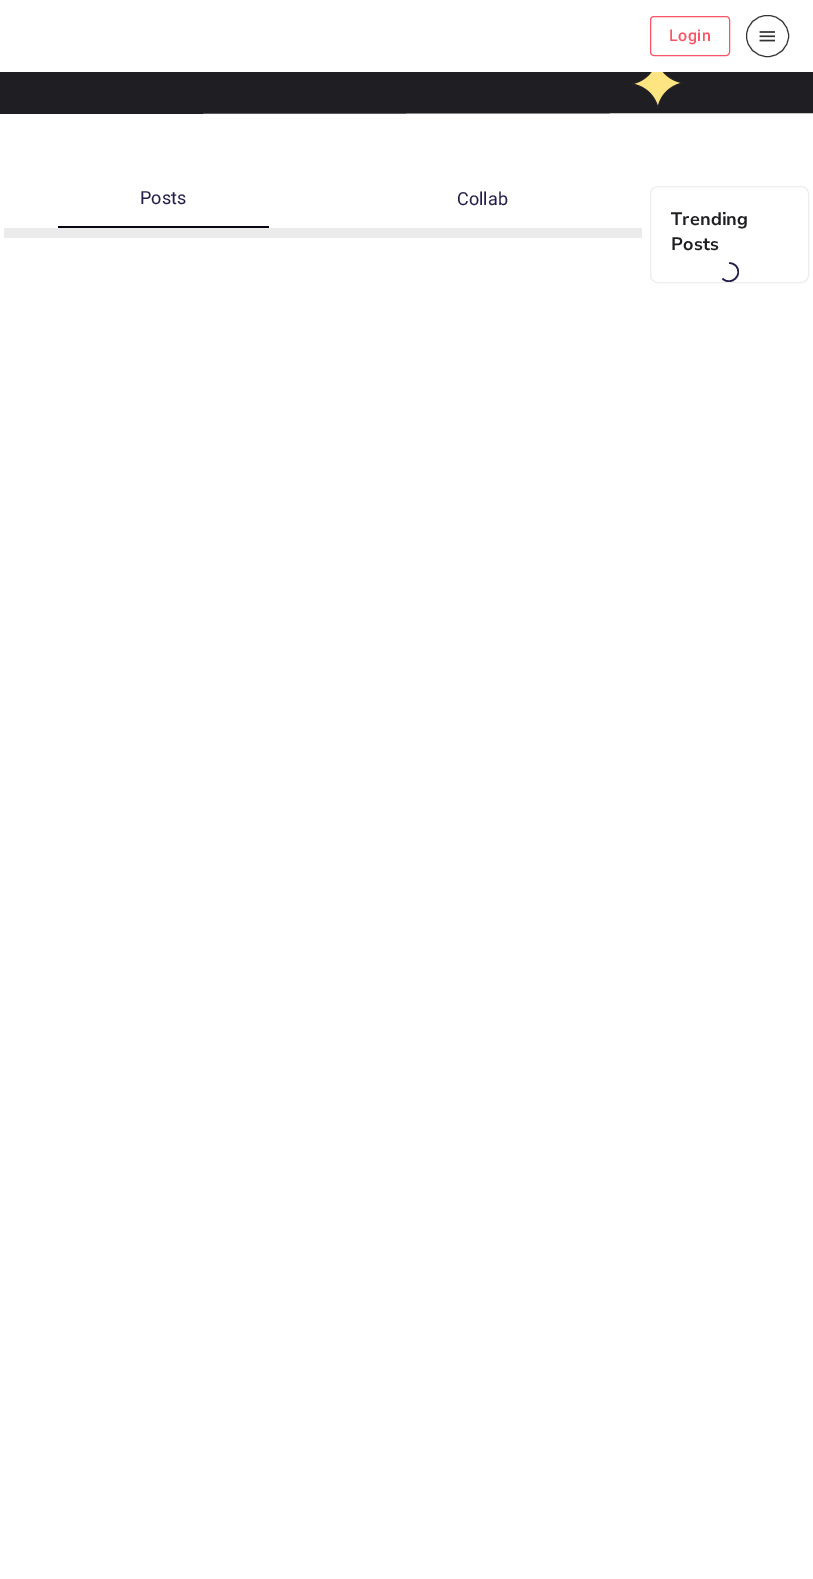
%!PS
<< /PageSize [813 1579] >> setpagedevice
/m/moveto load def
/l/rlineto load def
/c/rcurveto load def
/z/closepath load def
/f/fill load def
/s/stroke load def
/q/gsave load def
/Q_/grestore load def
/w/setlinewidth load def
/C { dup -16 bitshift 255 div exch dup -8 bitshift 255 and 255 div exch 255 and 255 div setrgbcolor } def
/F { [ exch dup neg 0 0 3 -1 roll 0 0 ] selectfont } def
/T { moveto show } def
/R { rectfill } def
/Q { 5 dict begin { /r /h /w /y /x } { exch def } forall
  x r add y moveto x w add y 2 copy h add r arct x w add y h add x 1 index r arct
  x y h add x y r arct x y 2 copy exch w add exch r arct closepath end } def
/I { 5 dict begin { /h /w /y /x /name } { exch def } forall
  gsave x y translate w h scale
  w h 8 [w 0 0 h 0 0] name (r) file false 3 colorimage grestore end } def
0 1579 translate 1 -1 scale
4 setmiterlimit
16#FFFFFF C
0 0 813 1579 R
16#F85666 C
650.5 16.5 79 39 3.5 Q s
/Roboto-Medium 16 F
669 41 m .5 0 (Login) ashow
16#333333 C
746.5 15.5 42 41 20.5 Q s
(1.rgb) 759 31 16 11 I
16#1E1E23 C
0 72 m 0 42 l 813 -1 l 0 -41 l z f
(2.rgb) 632 72 51 36 I
16#EBEBEC C
4 228 638 10 R
16#090612 C
58 226 211 2 R
/Roboto-Regular 18 F
16#241D4C C
(Posts) 140 204 T
(Collab) 457 205 T
16#EDEDED C
650.5 186.5 158 96 7.5 Q s
/NunitoSans-Bold 18 F
16#1E1E23 C
671 225 m .25 0 (Trending) ashow
671 250 m .25 0 (Posts) ashow
q
719 262 20 20 rectclip
16#241D4C C
1.6 w
729 263 m 2.5 0 5 1 6.5 2.5 c 9 9 -5 21.5 -13 13 c s
Q_
showpage
